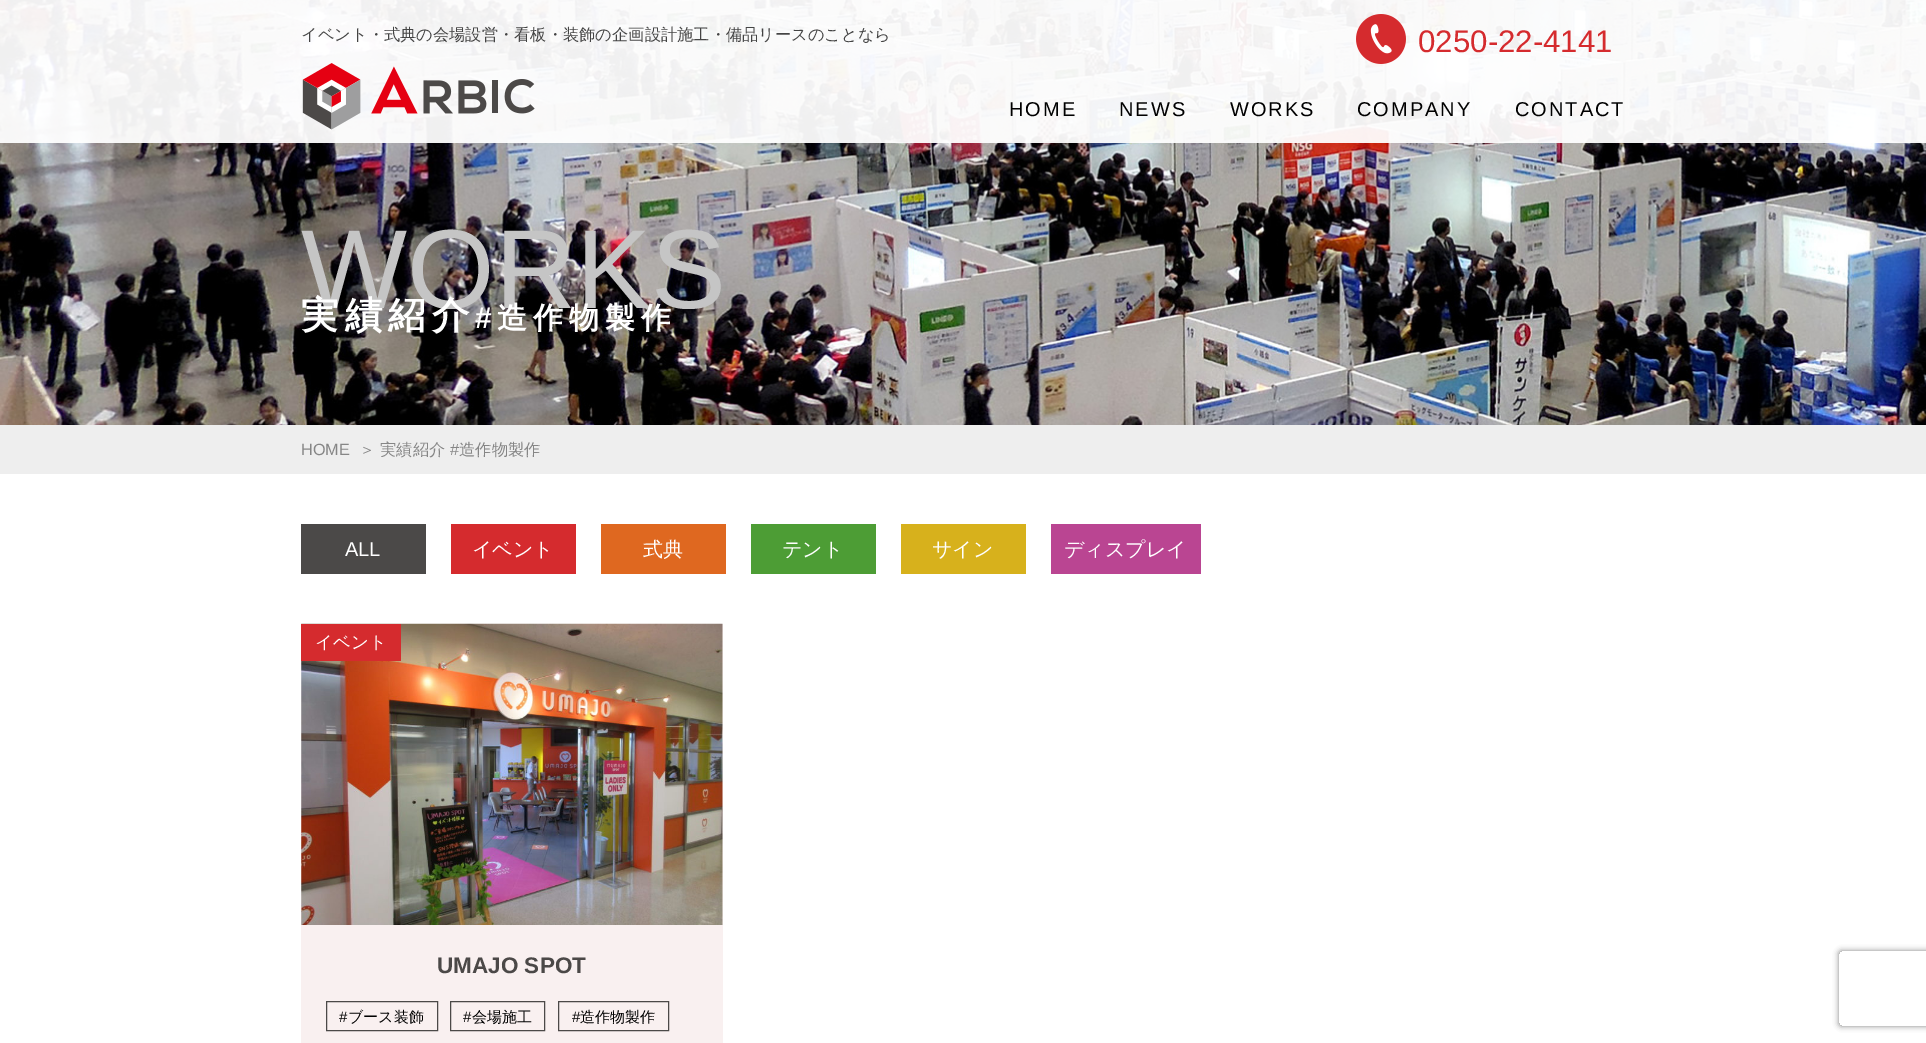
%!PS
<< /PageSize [1926 1043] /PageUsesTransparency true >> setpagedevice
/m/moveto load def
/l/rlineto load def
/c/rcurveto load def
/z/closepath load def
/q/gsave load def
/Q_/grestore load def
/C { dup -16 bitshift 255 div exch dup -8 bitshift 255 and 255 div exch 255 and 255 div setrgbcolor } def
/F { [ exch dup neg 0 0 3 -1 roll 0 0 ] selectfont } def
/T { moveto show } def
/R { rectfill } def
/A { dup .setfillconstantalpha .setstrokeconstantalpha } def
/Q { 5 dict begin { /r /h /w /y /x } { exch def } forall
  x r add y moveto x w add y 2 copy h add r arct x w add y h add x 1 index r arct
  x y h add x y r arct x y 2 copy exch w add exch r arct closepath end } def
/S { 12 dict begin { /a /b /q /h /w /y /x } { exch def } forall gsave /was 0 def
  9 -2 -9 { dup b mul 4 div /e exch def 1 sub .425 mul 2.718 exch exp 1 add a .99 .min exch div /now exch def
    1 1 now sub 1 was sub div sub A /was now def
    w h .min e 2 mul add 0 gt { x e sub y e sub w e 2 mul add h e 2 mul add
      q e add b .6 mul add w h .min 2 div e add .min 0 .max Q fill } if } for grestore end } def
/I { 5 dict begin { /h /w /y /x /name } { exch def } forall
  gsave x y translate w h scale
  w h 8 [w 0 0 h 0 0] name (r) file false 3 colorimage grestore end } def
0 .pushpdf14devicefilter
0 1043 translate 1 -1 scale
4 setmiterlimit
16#FFFFFF C
0 0 1926 1043 R
(3.rgb) 0 0 1926 425 I
0.94 A
0 0 1926 143 R
/WenQuanYiZenHei-Medium 16.25 F
1 A
16#444444 C
(イベント・式典の会場設営・看板・装飾の企画設計施工・備品リースのことなら) 301 40 T
(1.rgb) 302 63 233 67 I
(2.rgb) 1356 14 50 50 I
/LiberationSans-Regular 31.25 F
16#D52B2E C
(0250-22-4141) 1418 52 T
/LiberationSans-Regular 20 F
16#000000 C
1009 116 m 2 0 (HOME) ashow
1119 116 m 2 0 (NEWS) ashow
1230 116 m 2 0 (WORKS) ashow
1357 116 m 2 0 (COMPANY) ashow
1515 116 m 2 0 (CONTACT) ashow
/LiberationSans-Regular 112.5 F
16#C5C5C5 C
(WORKS) 301 308 T
/WenQuanYiZenHei-Bold 37.5 F
16#FFFFFF C
301 328 m 6 0 (実績紹介) ashow
/LiberationSans-Bold 30 F
475 328 m 6 0 (#) ashow
/WenQuanYiZenHei-Bold 30 F
497 328 m 6 0 (造作物製作) ashow
16#EEEEEE C
0 425 1926 49 R
/LiberationSans-Regular 16.25 F
16#868686 C
(HOME) 301 455 T
/WenQuanYiZenHei-Medium 16.25 F
(＞ 実績紹介) 359 455 T
/LiberationSans-Regular 16.25 F
(#) 450 455 T
/WenQuanYiZenHei-Medium 16.25 F
(造作物製作) 459 455 T
16#4B4948 C
301 524 125 50 R
/LiberationSans-Regular 20 F
16#FFFFFF C
(ALL) 345 556 T
16#D52B2E C
451 524 125 50 R
/WenQuanYiZenHei-Medium 20 F
16#FFFFFF C
(イベント) 472 556 T
16#DF6820 C
601 524 125 50 R
16#FFFFFF C
(式典) 643 556 T
16#4D9D35 C
751 524 125 50 R
16#FFFFFF C
(テント) 782 556 T
16#D7B11C C
901 524 125 50 R
16#FFFFFF C
(サイン) 932 556 T
16#BA4592 C
1051 524 150 50 R
16#FFFFFF C
(ディスプレイ) 1064 556 T
16#F9F0F0 C
301 624 422 419 R
(4.rgb) 301 623 422 302 I
16#D52B2E C
301 624 100 37 R
/WenQuanYiZenHei-Medium 17.5 F
16#FFFFFF C
(イベント) 315 648 T
/LiberationSans-Bold 22.5 F
16#4B4847 C
(UMAJO SPOT) 437 973 T
16#4B4948 C
326.5 1001.5 111 29 rectstroke
/LiberationSans-Regular 15 F
16#000000 C
(#) 339 1022 T
/WenQuanYiZenHei-Medium 15 F
(ブース装飾) 348 1022 T
16#4B4948 C
450.5 1001.5 94 29 rectstroke
/LiberationSans-Regular 15 F
16#000000 C
(#) 463 1022 T
/WenQuanYiZenHei-Medium 15 F
(会場施工) 472 1022 T
16#4B4948 C
558.5 1001.5 110 29 rectstroke
/LiberationSans-Regular 15 F
16#000000 C
(#) 572 1022 T
/WenQuanYiZenHei-Medium 15 F
(造作物製作) 580 1022 T
q
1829 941 m 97 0 l 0 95 l -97 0 l z 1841.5 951 m 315 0 l 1.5 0 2.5 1 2.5 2.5 c 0 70 l 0 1.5 -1 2.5 -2.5 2.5 c -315 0 l -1.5 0 -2.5 -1 -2.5 -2.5 c 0 -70 l 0 -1.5 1 -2.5 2.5 -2.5 c z eoclip newpath
16#808080 C
1839 951 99 75 2.5 3 1 S
Q_
.poppdf14devicefilter showpage
